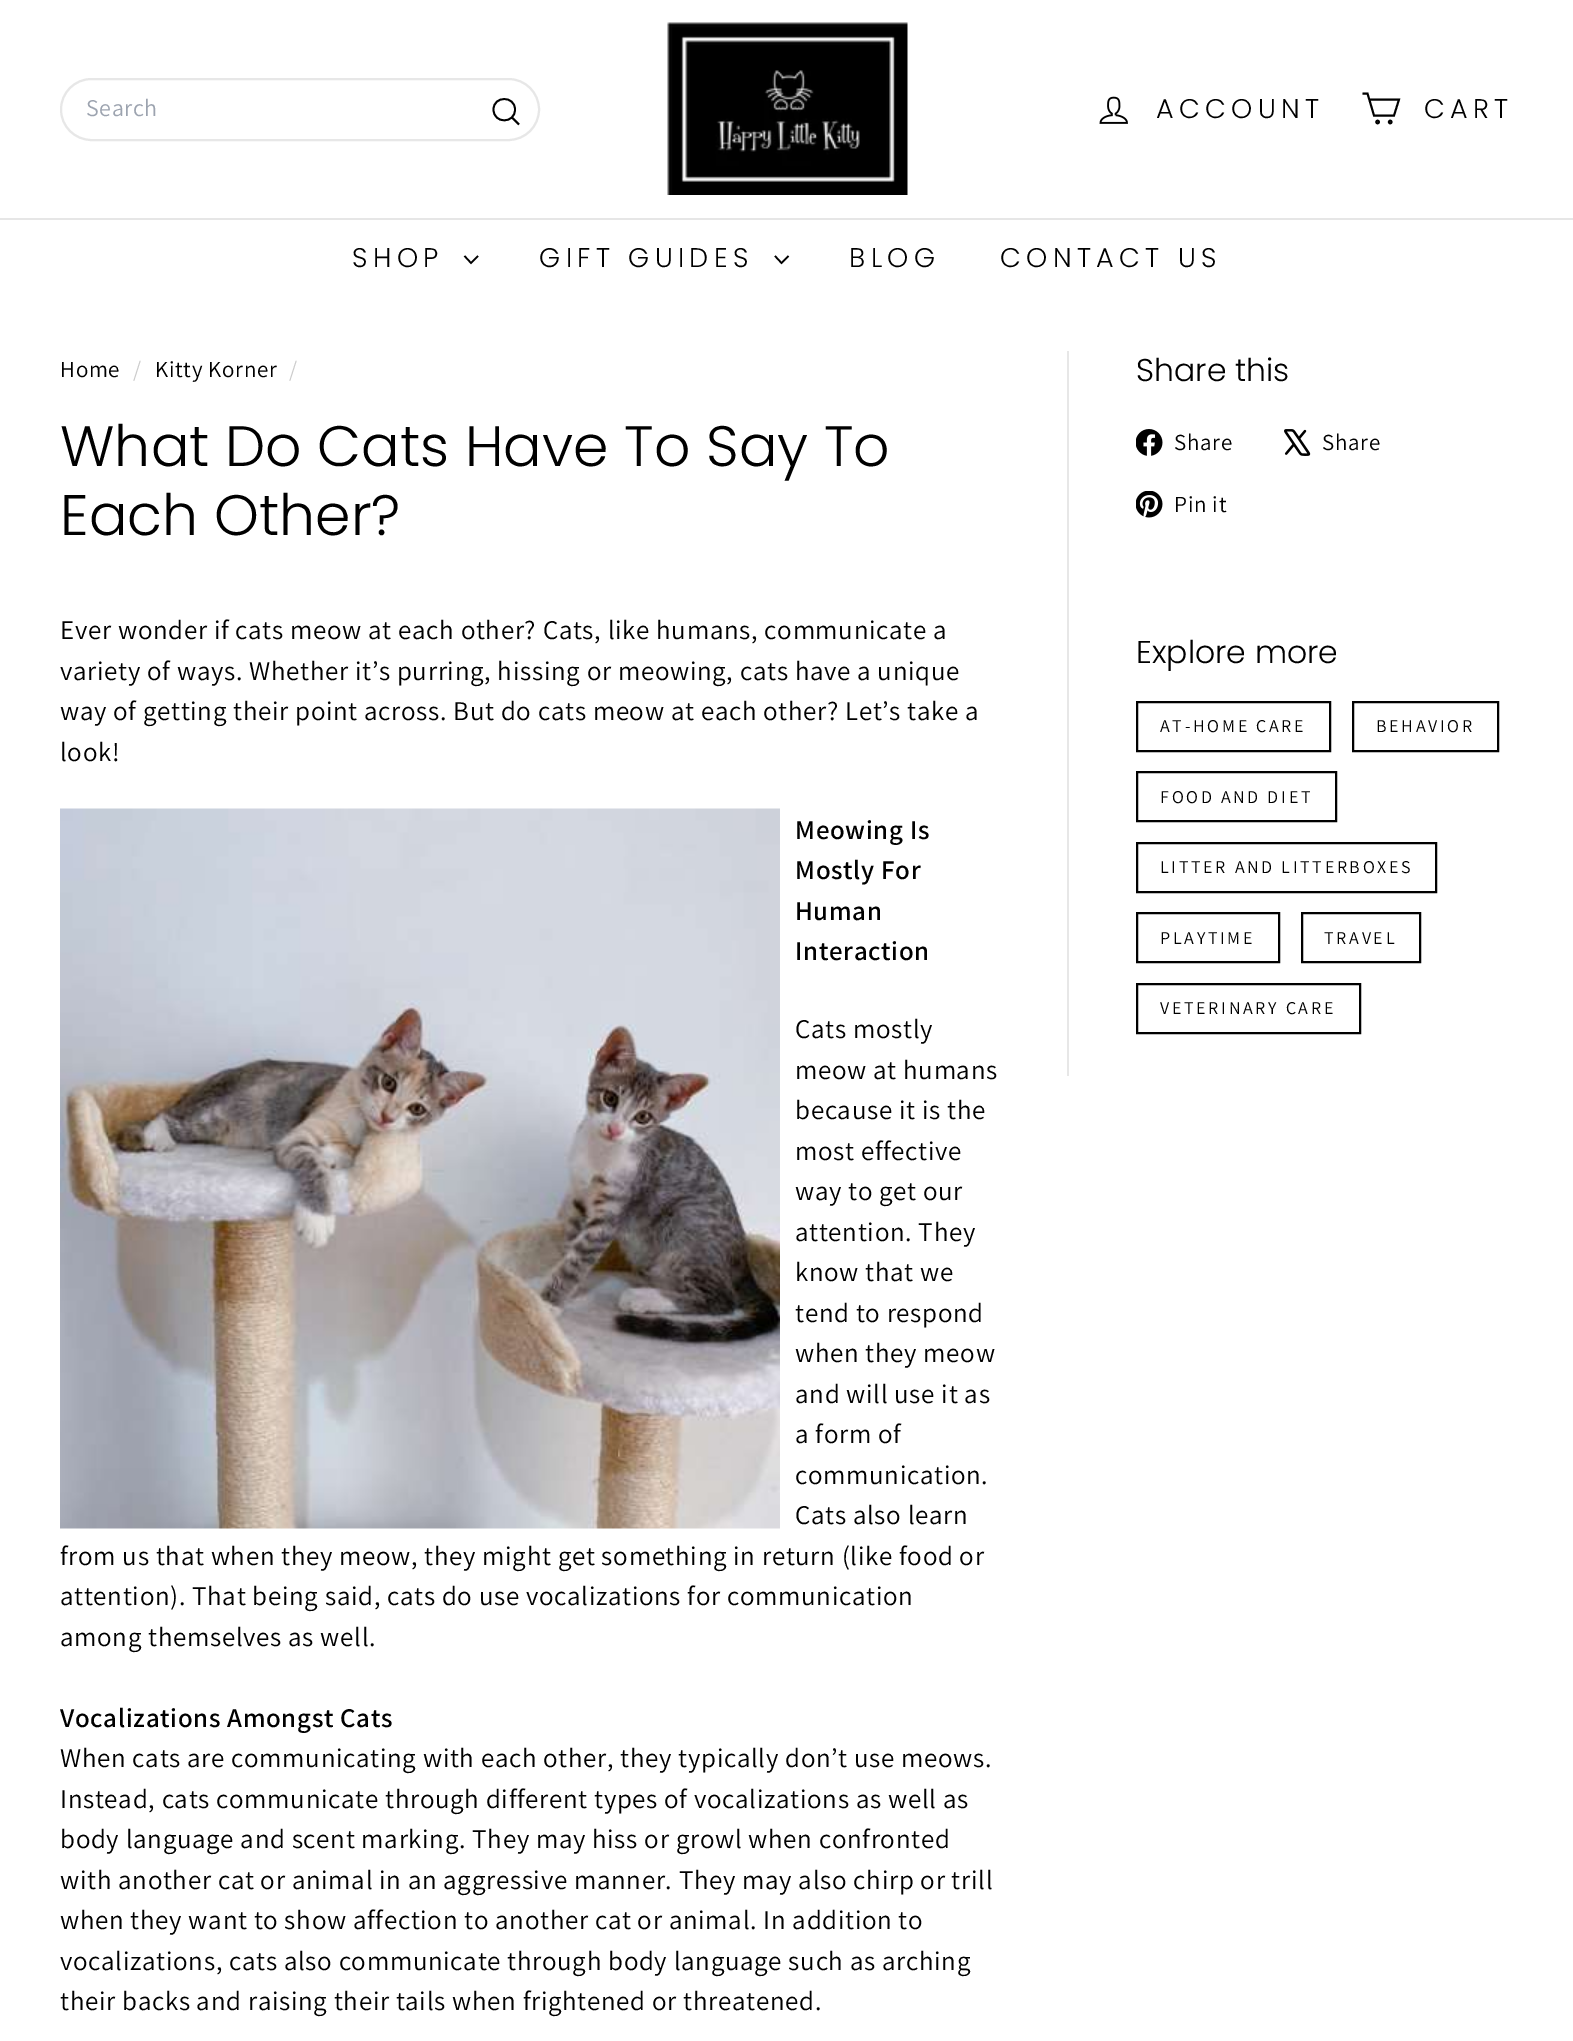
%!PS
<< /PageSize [1573 2041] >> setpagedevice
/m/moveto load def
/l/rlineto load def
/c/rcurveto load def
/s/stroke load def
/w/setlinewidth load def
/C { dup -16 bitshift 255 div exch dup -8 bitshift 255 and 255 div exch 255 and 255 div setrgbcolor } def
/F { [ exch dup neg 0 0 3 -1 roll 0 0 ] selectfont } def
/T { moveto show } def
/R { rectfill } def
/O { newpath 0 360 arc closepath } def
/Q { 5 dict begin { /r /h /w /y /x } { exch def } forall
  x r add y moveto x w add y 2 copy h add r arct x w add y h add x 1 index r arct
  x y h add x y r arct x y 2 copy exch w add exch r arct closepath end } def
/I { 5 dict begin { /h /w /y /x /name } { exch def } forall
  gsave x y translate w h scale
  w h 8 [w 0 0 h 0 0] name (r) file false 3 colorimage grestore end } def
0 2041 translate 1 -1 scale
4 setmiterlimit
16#FFFFFF C
0 0 1573 2041 R
16#E7E7E7 C
2 w
61 79 478 61 30.5 Q s
/Assistant-Regular 24 F
16#9CA3AF C
86 116 m .5 0 (Search) ashow
16#000000 C
1.8 w
515 109.5 m 0 14.5 -21.5 14.5 -21.5 0 c 0 -14 21.5 -14 21.5 0 c 519 124.5 m -7 -7 l s
(1.rgb) 667 22 241 173 I
(2.rgb) 1099 96 29 28 I
/Poppins-Light 27 F
1156 118 m 5.4 0 (ACCOUNT) ashow
1.9 w
1369.5 99.5 m 29.5 0 l -5 16 l -20 0 l -6.5 -22 l -5 0 l s
1377.6 122 1.3 O s
1390.2 122 1.3 O s
1424 118 m 5.4 0 (CART) ashow
16#E6E6E6 C
0 218 1573 2 R
16#000000 C
352 267 m 5.4 0 (SHOP) ashow
1.6 w
464.5 256 m 6.5 7 l 7 -7 l s
539 267 m 5.4 0 (GIFT GUIDES) ashow
775 256 m 6.5 7 l 7 -7 l s
849 267 m 5.4 0 (BLOG) ashow
1000 267 m 5.4 0 (CONTACT US) ashow
/Assistant-Regular 23 F
60 377 m .68 0 (Home) ashow
16#CCCCCC C
133 377 m .68 0 (/) ashow
16#000000 C
155 377 m .68 0 (Kitty Korner) ashow
16#CCCCCC C
289 377 m .68 0 (/) ashow
/Poppins-Light 57 F
16#000000 C
(What Do Cats Have To Say To) 60 466 T
(Each Other?) 60 535 T
/Assistant-Regular 27 F
60 639 m .68 0 (Ever wonder if cats meow at each other? Cats, like humans, communicate a) ashow
60 680 m .68 0 (variety of ways. Whether it’s purring, hissing or meowing, cats have a unique) ashow
60 720 m .68 0 (way of getting their point across. But do cats meow at each other? Let’s take a) ashow
60 761 m .68 0 (look!) ashow
(3.rgb) 60 808 720 721 I
/Assistant-SemiBold 27 F
795 839 m .68 0 (Meowing Is) ashow
795 879 m .68 0 (Mostly For) ashow
795 920 m .68 0 (Human) ashow
795 960 m .68 0 (Interaction) ashow
/Assistant-Regular 27 F
795 1038 m .68 0 (Cats mostly) ashow
795 1079 m .68 0 (meow at humans) ashow
795 1119 m .68 0 (because it is the) ashow
795 1160 m .68 0 (most effective) ashow
795 1200 m .68 0 (way to get our) ashow
795 1241 m .68 0 (attention. They) ashow
795 1281 m .68 0 (know that we) ashow
795 1322 m .68 0 (tend to respond) ashow
795 1362 m .68 0 (when they meow) ashow
795 1403 m .68 0 (and will use it as) ashow
795 1443 m .68 0 (a form of) ashow
795 1484 m .68 0 (communication.) ashow
795 1524 m .68 0 (Cats also learn) ashow
60 1565 m .68 0 (from us that when they meow, they might get something in return \(like food or) ashow
60 1605 m .68 0 (attention\). That being said, cats do use vocalizations for communication) ashow
60 1646 m .68 0 (among themselves as well.) ashow
/Assistant-SemiBold 27 F
60 1727 m .68 0 (Vocalizations Amongst Cats) ashow
/Assistant-Regular 27 F
60 1767 m .68 0 (When cats are communicating with each other, they typically don’t use meows.) ashow
60 1808 m .68 0 (Instead, cats communicate through different types of vocalizations as well as) ashow
60 1848 m .68 0 (body language and scent marking. They may hiss or growl when confronted) ashow
60 1889 m .68 0 (with another cat or animal in an aggressive manner. They may also chirp or trill) ashow
60 1929 m .68 0 (when they want to show affection to another cat or animal. In addition to) ashow
60 1970 m .68 0 (vocalizations, cats also communicate through body language such as arching) ashow
60 2010 m .68 0 (their backs and raising their tails when frightened or threatened.) ashow
16#E7E7E7 C
1067 351 2 725 R
/Poppins-Light 31.5 F
16#000000 C
(Share this) 1136 381 T
(4.rgb) 1136 429 27 27 I
/Assistant-Regular 23 F
1174 450 m .68 0 (Share) ashow
(5.rgb) 1284 429 27 27 I
1322 450 m .68 0 (Share) ashow
(6.rgb) 1136 491 27 27 I
1174 512 m .68 0 (Pin it) ashow
/Poppins-Light 31.5 F
(Explore more) 1136 663 T
2 w
1137 702 193 49 rectstroke
/Assistant-Regular 18 F
1160 732 m 2.7 0 (AT-HOME CARE) ashow
1353 702 145 49 rectstroke
1376 732 m 2.7 0 (BEHAVIOR) ashow
1137 772 199 49 rectstroke
1160 803 m 2.7 0 (FOOD AND DIET) ashow
1137 843 299 49 rectstroke
1160 873 m 2.7 0 (LITTER AND LITTERBOXES) ashow
1137 913 142 49 rectstroke
1160 944 m 2.7 0 (PLAYTIME) ashow
1302 913 118 49 rectstroke
1324 944 m 2.7 0 (TRAVEL) ashow
1137 984 223 49 rectstroke
1160 1014 m 2.7 0 (VETERINARY CARE) ashow
showpage
